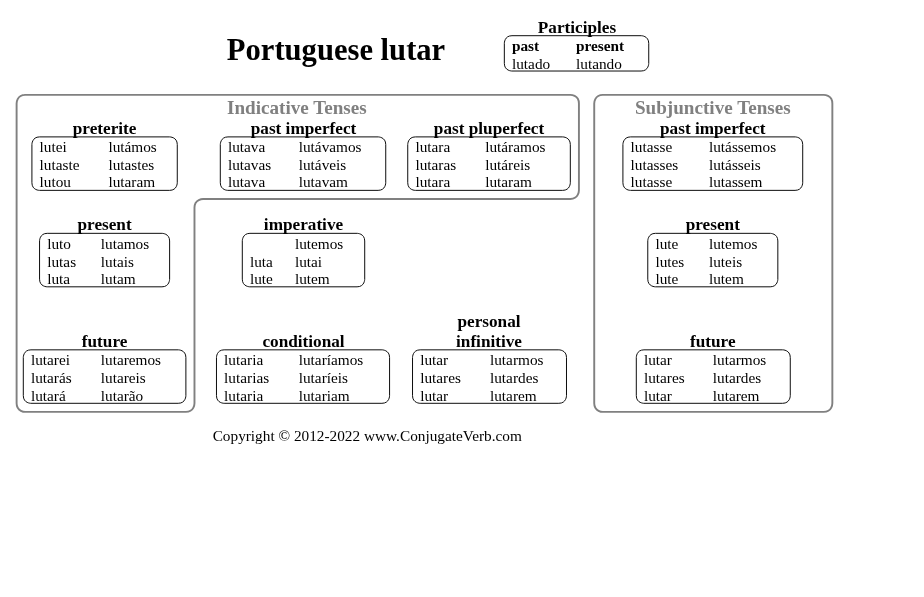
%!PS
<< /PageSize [924 597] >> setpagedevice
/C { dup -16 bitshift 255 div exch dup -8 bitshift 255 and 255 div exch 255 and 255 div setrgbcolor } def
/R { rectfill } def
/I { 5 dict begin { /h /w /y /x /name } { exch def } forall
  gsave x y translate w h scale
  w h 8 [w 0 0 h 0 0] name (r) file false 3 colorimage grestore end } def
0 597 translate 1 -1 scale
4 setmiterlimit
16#FFFFFF C
0 0 924 597 R
(1.rgb) 15 21 819 423 I
showpage
